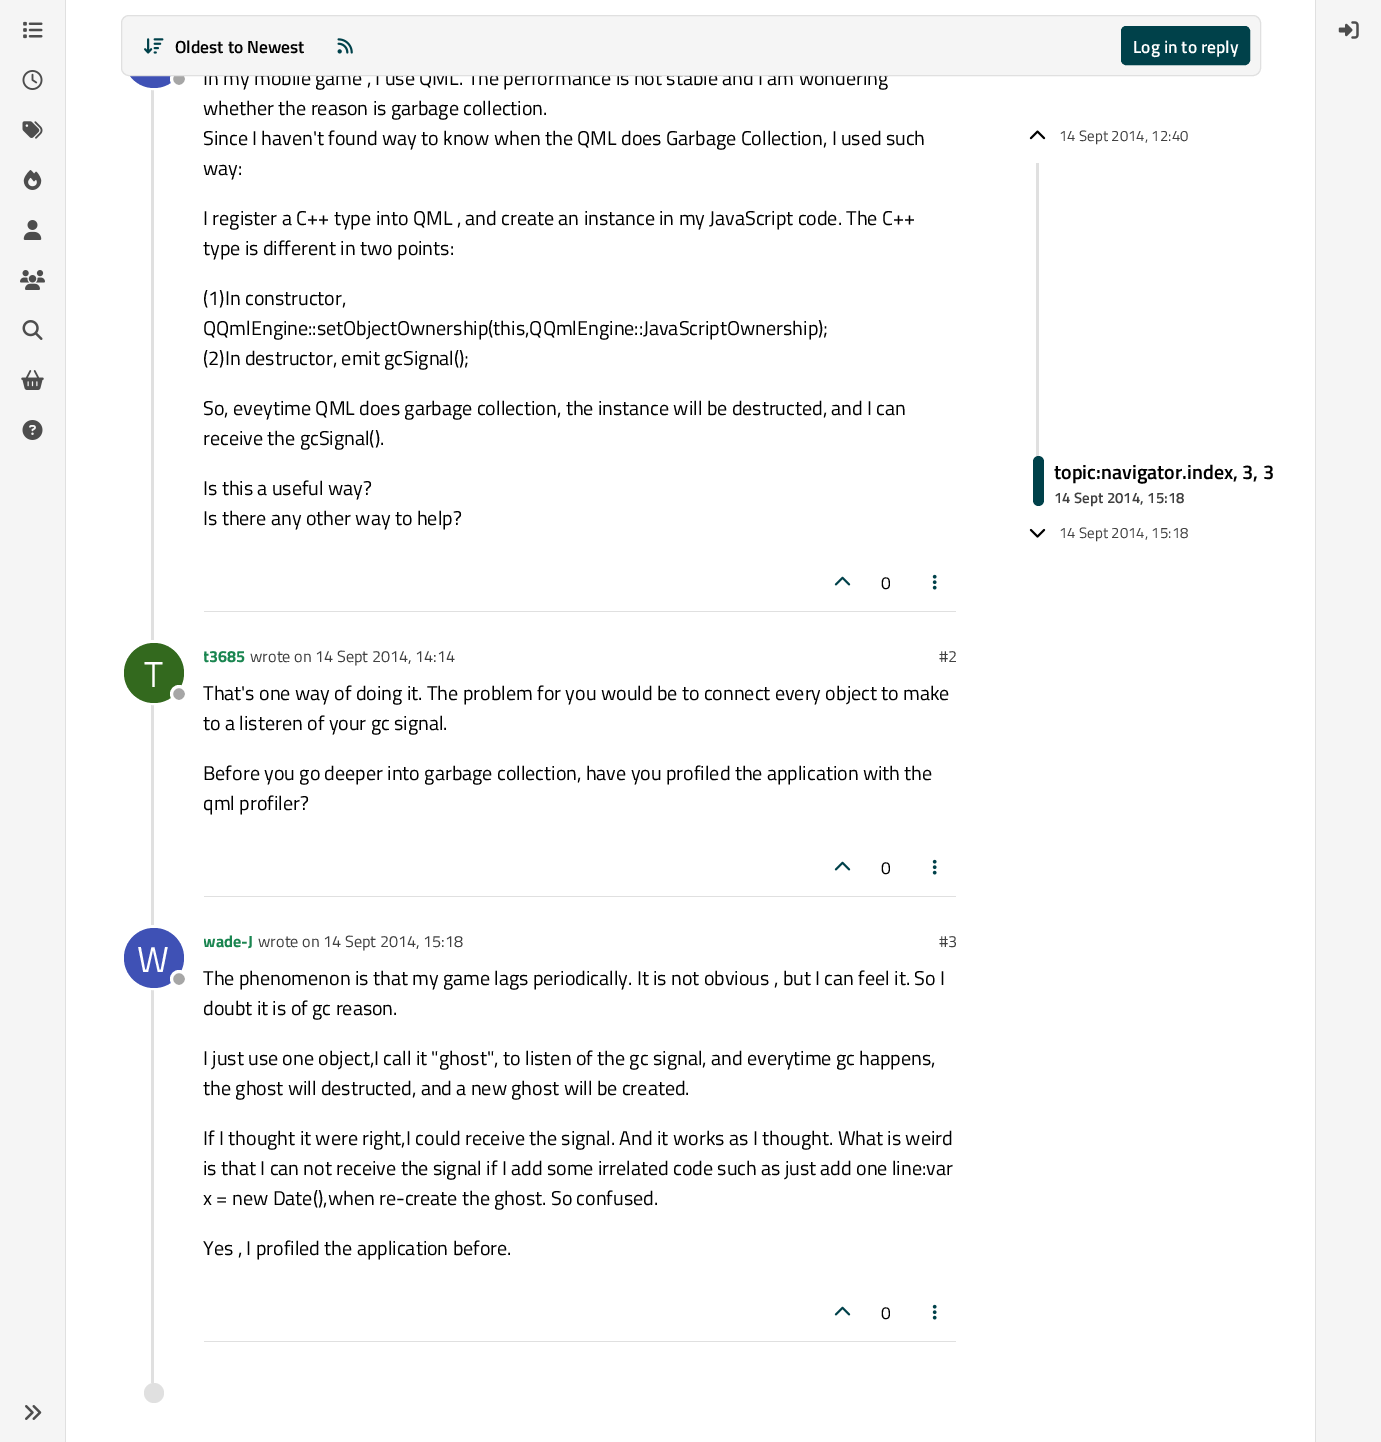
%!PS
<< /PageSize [1381 1442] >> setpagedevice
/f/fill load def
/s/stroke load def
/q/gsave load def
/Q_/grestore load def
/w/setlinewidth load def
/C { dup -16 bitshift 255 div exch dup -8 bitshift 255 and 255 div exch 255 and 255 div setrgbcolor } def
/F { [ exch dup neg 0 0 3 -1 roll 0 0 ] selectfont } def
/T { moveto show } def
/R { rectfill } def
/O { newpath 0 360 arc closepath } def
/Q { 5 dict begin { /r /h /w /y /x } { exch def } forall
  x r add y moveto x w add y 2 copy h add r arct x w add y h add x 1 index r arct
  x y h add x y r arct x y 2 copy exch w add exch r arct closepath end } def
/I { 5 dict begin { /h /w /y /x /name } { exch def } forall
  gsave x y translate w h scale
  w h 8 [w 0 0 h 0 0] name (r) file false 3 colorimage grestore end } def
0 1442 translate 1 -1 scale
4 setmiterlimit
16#FFFFFF C
0 0 1381 1442 R
16#F5F5F5 C
0 0 65 1442 R
16#E0E0E0 C
65 0 1 1442 R
(1.rgb) 23 21 20 18 I
(2.rgb) 22 70 21 20 I
(3.rgb) 22 121 21 18 I
(4.rgb) 23 170 19 20 I
(5.rgb) 23 220 19 20 I
(6.rgb) 20 270 25 20 I
(7.rgb) 22 320 21 20 I
(8.rgb) 21 370 23 20 I
(9.rgb) 22 420 21 20 I
(10.rgb) 25 1405 17 15 I
151 89 3 1294 R
16#FFFFFF C
3 w
153.5 57.5 31 O s
16#3F51B5 C
154 58 30 O f
16#A6A6A6 C
179 79 7.5 O q f Q_
16#FFFFFF C
s
/TitilliumWeb-Regular 20 F
16#000000 C
(In my mobile game , I use QML. The performance is not stable and I am wondering) 203 85 T
16#F5F5F5 C
121.5 15.5 1139 60 7.5 Q q f Q_
16#E0E0E0 C
1 w
s
(11.rgb) 144 38 20 16 I
/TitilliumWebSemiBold-SemiBold 17.5 F
16#000000 C
(Oldest to Newest) 175 53 T
(12.rgb) 337 38 16 16 I
16#00414A C
1121.5 26.5 128 38 4.5 Q q f Q_
s
16#FFFFFF C
(Log in to reply) 1133 53 T
/TitilliumWeb-Regular 20 F
16#000000 C
(whether the reason is garbage collection.) 203 115 T
(Since I haven't found way to know when the QML does Garbage Collection, I used such) 203 145 T
(way:) 203 175 T
(I register a C++ type into QML , and create an instance in my JavaScript code. The C++) 203 225 T
(type is different in two points:) 203 255 T
(\(1\)In constructor,) 203 305 T
(QQmlEngine::setObjectOwnership\(this,QQmlEngine::JavaScriptOwnership\);) 203 335 T
(\(2\)In destructor, emit gcSignal\(\);) 203 365 T
(So, eveytime QML does garbage collection, the instance will be destructed, and I can) 203 415 T
(receive the gcSignal\(\).) 203 445 T
(Is this a useful way?) 203 495 T
(Is there any other way to help?) 203 525 T
16#E0E0E0 C
204 611 752 1 R
(13.rgb) 834 576 17 10 I
/TitilliumWeb-Regular 17.5 F
16#000000 C
(0) 881 589 T
(14.rgb) 932 574 5 16 I
16#FFFFFF C
3 w
153.5 672.5 31 O s
16#33691E C
154 673 30 O f
/TitilliumWeb-Regular 36 F
16#FFFFFF C
(T) 144 687 T
16#A6A6A6 C
179 694 7.5 O q f Q_
16#FFFFFF C
s
q
204 643 41 25 rectclip
/TitilliumWeb-Bold 16.25 F
16#1A8550 C
(t3685) 203 662 T
Q_
/TitilliumWeb-Regular 16.25 F
16#404040 C
(wrote on 14 Sept 2014, 14:14) 250 662 T
(#2) 939 662 T
/TitilliumWeb-Regular 20 F
16#000000 C
(That's one way of doing it. The problem for you would be to connect every object to make) 203 700 T
(to a listeren of your gc signal.) 203 730 T
(Before you go deeper into garbage collection, have you profiled the application with the) 203 780 T
(qml profiler?) 203 810 T
16#E0E0E0 C
204 896 752 1 R
(13.rgb) 834 861 17 10 I
/TitilliumWeb-Regular 17.5 F
16#000000 C
(0) 881 874 T
(14.rgb) 932 859 5 16 I
16#FFFFFF C
153.5 957.5 31 O s
16#3F51B5 C
154 958 30 O f
/TitilliumWeb-Regular 36 F
16#FFFFFF C
(W) 137 972 T
16#A6A6A6 C
179 979 7.5 O q f Q_
16#FFFFFF C
s
q
204 928 49 25 rectclip
/TitilliumWeb-Bold 16.25 F
16#1A8550 C
(wade-J) 203 947 T
Q_
/TitilliumWeb-Regular 16.25 F
16#404040 C
(wrote on 14 Sept 2014, 15:18) 258 947 T
(#3) 939 947 T
/TitilliumWeb-Regular 20 F
16#000000 C
(The phenomenon is that my game lags periodically. It is not obvious , but I can feel it. So I) 203 985 T
(doubt it is of gc reason.) 203 1015 T
(I just use one object,I call it "ghost", to listen of the gc signal, and everytime gc happens,) 203 1065 T
(the ghost will destructed, and a new ghost will be created.) 203 1095 T
(If I thought it were right,I could receive the signal. And it works as I thought. What is weird) 203 1145 T
(is that I can not receive the signal if I add some irrelated code such as just add one line:var) 203 1175 T
(x = new Date\(\),when re-create the ghost. So confused.) 203 1205 T
(Yes , I profiled the application before.) 203 1255 T
16#E0E0E0 C
204 1341 752 1 R
(13.rgb) 834 1306 17 10 I
/TitilliumWeb-Regular 17.5 F
16#000000 C
(0) 881 1319 T
(14.rgb) 932 1304 5 16 I
16#E0E0E0 C
154 1393 10 O f
(15.rgb) 1029 130 17 10 I
/TitilliumWeb-Regular 15 F
16#404040 C
(14 Sept 2014, 12:40) 1059 141 T
16#E0E0E0 C
1036 163 3 343 R
16#00414A C
1033 456 11 50 5.5 Q f
/TitilliumWebSemiBold-SemiBold 20 F
16#000000 C
(topic:navigator.index, 3, 3) 1054 479 T
/TitilliumWebSemiBold-SemiBold 15 F
16#404040 C
(14 Sept 2014, 15:18) 1054 503 T
(16.rgb) 1029 528 17 10 I
/TitilliumWeb-Regular 15 F
(14 Sept 2014, 15:18) 1059 538 T
16#F5F5F5 C
1316 0 65 1442 R
16#E0E0E0 C
1315 0 1 1442 R
(17.rgb) 1338 21 21 18 I
showpage
